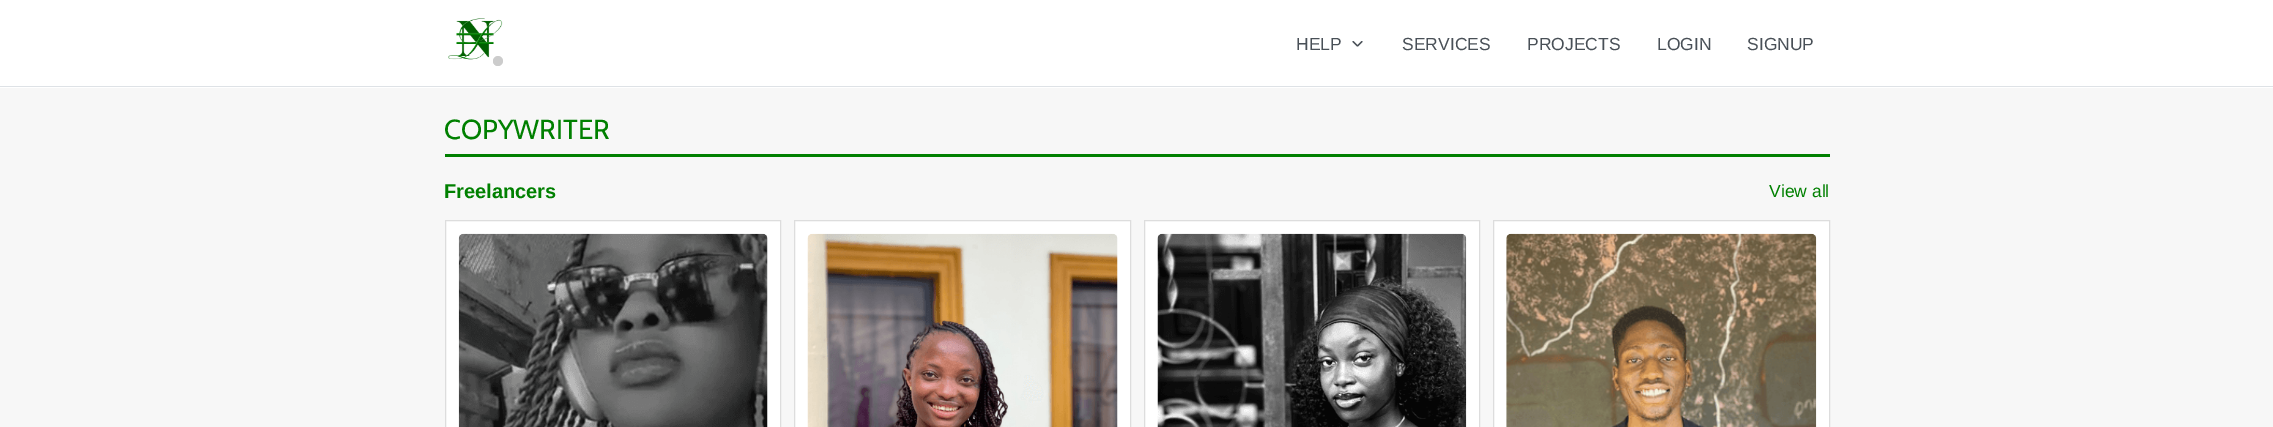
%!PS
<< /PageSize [2273 427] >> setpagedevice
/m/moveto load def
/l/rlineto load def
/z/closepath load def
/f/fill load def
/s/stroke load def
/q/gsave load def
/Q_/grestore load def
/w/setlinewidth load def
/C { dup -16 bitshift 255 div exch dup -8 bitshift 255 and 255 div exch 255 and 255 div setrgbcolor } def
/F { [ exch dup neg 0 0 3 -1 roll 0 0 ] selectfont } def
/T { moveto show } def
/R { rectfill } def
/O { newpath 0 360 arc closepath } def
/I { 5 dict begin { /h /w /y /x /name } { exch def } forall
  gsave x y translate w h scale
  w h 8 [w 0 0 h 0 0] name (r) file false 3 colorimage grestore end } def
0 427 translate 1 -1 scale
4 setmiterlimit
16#F7F7F7 C
0 0 2273 427 R
16#FFFFFF C
0 0 2273 88 R
16#DEE2E6 C
0 86 2273 1 R
(1.rgb) 448 18 55 42 I
16#CCCCCC C
497.5 61.5 6 O q f Q_
16#FFFFFF C
3 w
s
16#CCCCCC C
498 61 5 O f
/LiberationSans-Regular 17.5 F
16#495057 C
(HELP) 1296 50 T
1.1 w
1 setlinecap
1 setlinejoin
1353 41.5 m 4.5 4.5 l 4.5 -4.5 l s
(SERVICES) 1402 50 T
(PROJECTS) 1527 50 T
(LOGIN) 1657 50 T
(SIGNUP) 1747 50 T
/Cabin-Regular 27.5 F
16#008000 C
(COPYWRITER) 444 139 T
445 154 1385 3 R
/LiberationSans-Bold 20 F
(Freelancers) 444 198 T
/LiberationSans-Regular 17.5 F
(View all) 1769 197 T
16#FFFFFF C
445.5 220.5 m 335 0 l 0 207 l -335 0 l z q f Q_
16#DDDDDD C
1 w
0 setlinecap
0 setlinejoin
s
(2.rgb) 458 233 310 194 I
16#FFFFFF C
794.5 220.5 m 336 0 l 0 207 l -336 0 l z q f Q_
16#DDDDDD C
s
(3.rgb) 807 233 311 194 I
16#FFFFFF C
1144.5 220.5 m 335 0 l 0 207 l -335 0 l z q f Q_
16#DDDDDD C
s
(4.rgb) 1157 233 310 194 I
16#FFFFFF C
1493.5 220.5 m 336 0 l 0 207 l -336 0 l z q f Q_
16#DDDDDD C
s
(5.rgb) 1506 233 311 194 I
showpage
